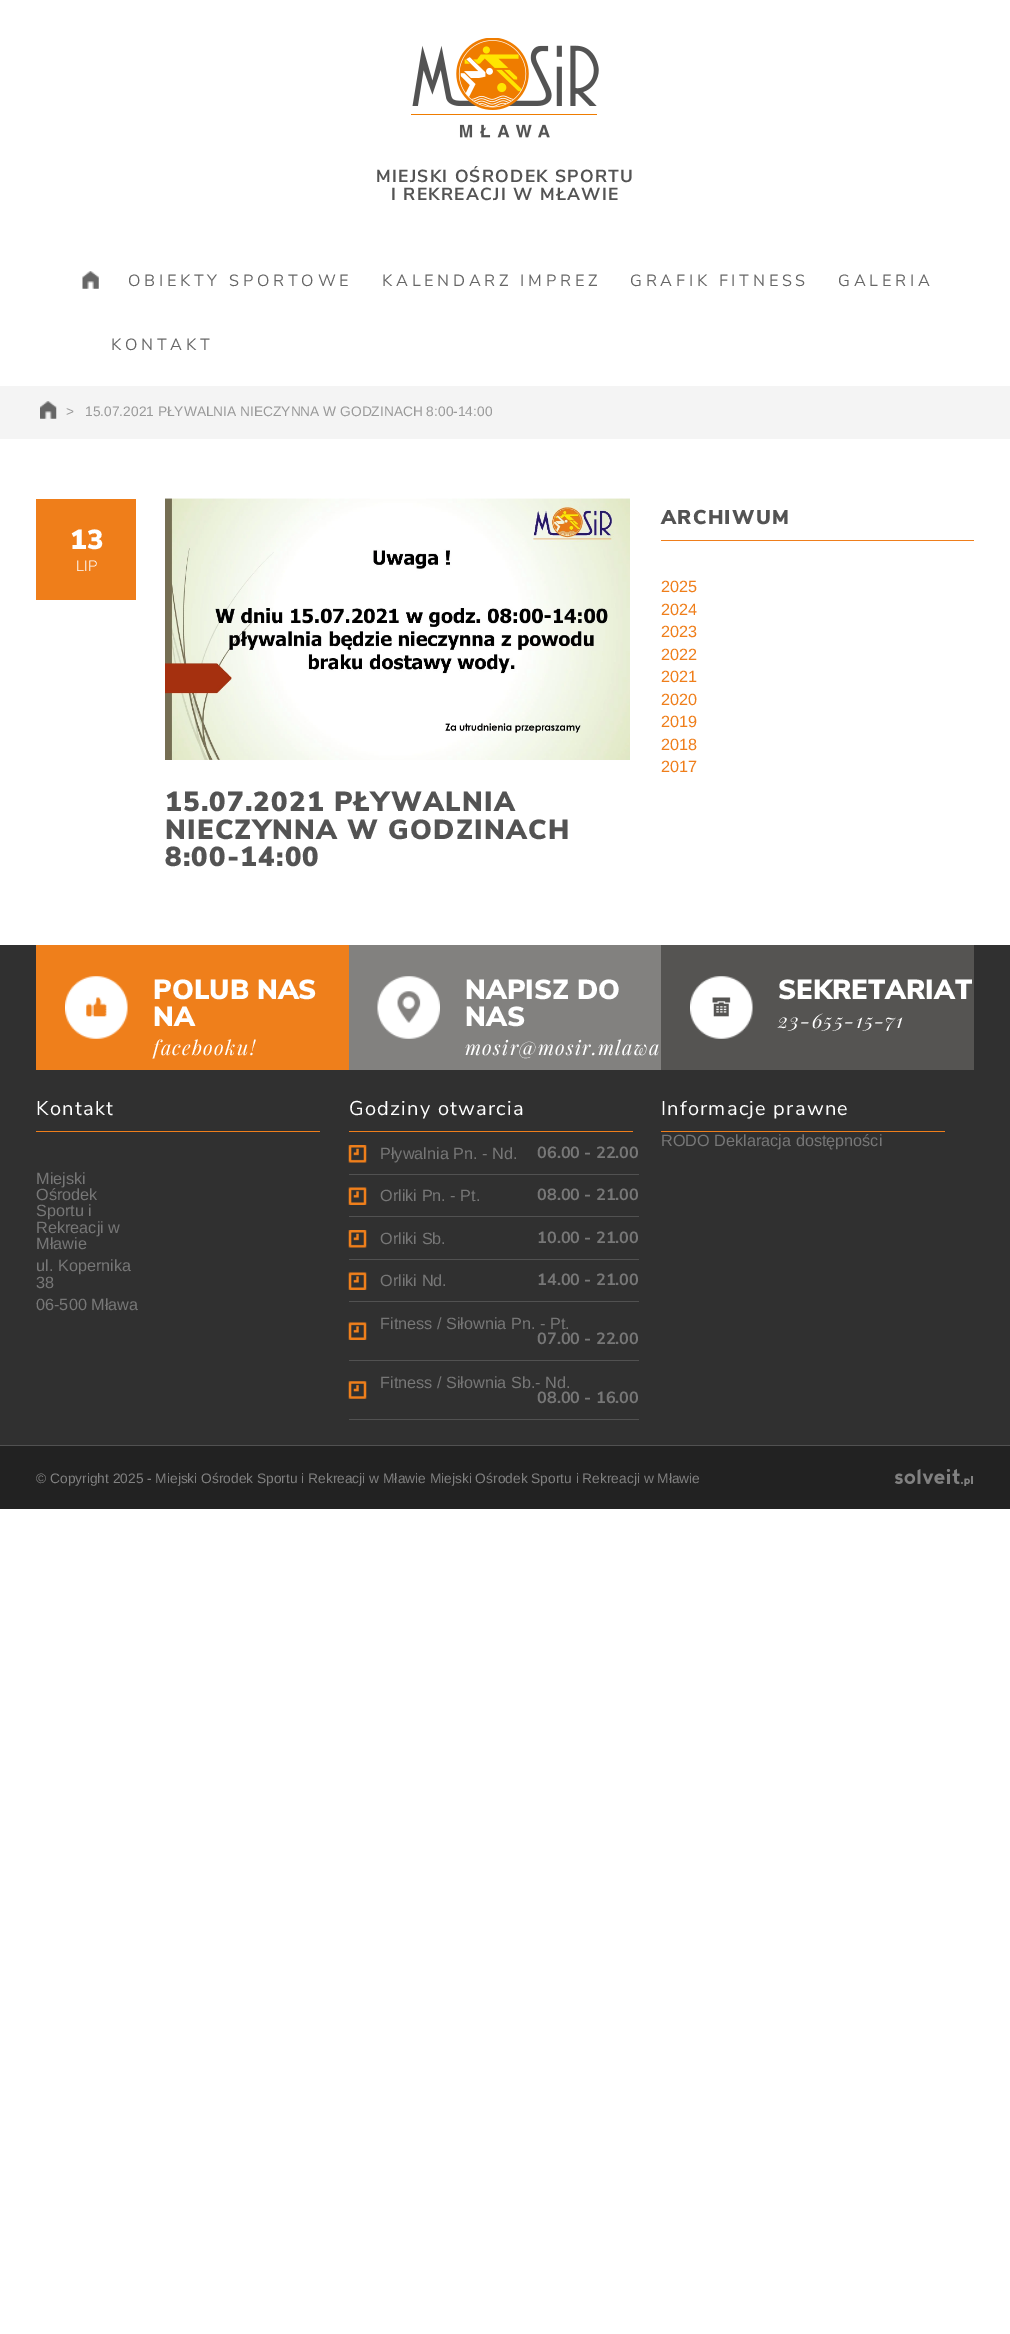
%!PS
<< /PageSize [1010 2334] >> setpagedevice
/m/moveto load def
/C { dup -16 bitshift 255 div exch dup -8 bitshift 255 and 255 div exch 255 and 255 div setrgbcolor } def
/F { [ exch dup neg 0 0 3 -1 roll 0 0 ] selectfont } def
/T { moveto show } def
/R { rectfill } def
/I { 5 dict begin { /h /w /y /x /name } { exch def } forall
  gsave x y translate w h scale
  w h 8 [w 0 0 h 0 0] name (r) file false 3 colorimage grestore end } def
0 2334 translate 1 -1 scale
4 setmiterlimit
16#FFFFFF C
0 0 1010 2334 R
(1.rgb) 411 38 188 100 I
/NunitoSans-Bold 17.5 F
16#535353 C
376 182 m 1.25 0 (MIEJSKI OŚRODEK SPORTU) ashow
391 200 m 1.25 0 (I REKREACJI W MŁAWIE) ashow
(2.rgb) 82 271 17 18 I
/NunitoSans-Regular 16.25 F
16#666666 C
128 286 m 3.75 0 (OBIEKTY SPORTOWE) ashow
382 286 m 3.75 0 (KALENDARZ IMPREZ) ashow
630 286 m 3.75 0 (GRAFIK FITNESS) ashow
838 286 m 3.75 0 (GALERIA) ashow
111 350 m 3.75 0 (KONTAKT) ashow
16#F4F4F4 C
0 386 1010 53 R
(3.rgb) 40 401 17 18 I
/LiberationSans-Regular 13.75 F
16#999999 C
(>) 66 416 T
(15.07.2021 PŁYWALNIA NIECZYNNA W GODZINACH 8:00-14:00) 85 416 T
16#EF7E1A C
36 499 100 101 R
/NunitoSans-Black 27.5 F
16#FFFFFF C
(13) 70 549 T
/NunitoSans-Light 15 F
(LIP) 76 571 T
(4.rgb) 165 498 465 262 I
(5.rgb) 165 498 465 1 I
/NunitoSans-Black 27.5 F
16#535353 C
165 811 m 1.25 0 (15.07.2021 PŁYWALNIA) ashow
165 839 m 1.25 0 (NIECZYNNA W GODZINACH) ashow
165 866 m 1.25 0 (8:00-14:00) ashow
16#EF7E1B C
661 540 313 1 R
/NunitoSans-Black 20 F
16#535353 C
661 524 m 1.25 0 (ARCHIWUM) ashow
/LiberationSans-Regular 16.25 F
16#EF7E1A C
(2025) 661 592 T
(2024) 661 615 T
(2023) 661 637 T
(2022) 661 660 T
(2021) 661 682 T
(2020) 661 705 T
(2019) 661 727 T
(2018) 661 750 T
(2017) 661 772 T
16#303030 C
0 945 1010 500 R
16#EF7F1B C
36 945 313 125 R
(6.rgb) 65 976 63 63 I
/NunitoSans-Black 27.5 F
16#FFFFFF C
(POLUB NAS) 153 999 T
(NA) 153 1026 T
/PlayfairDisplay-Italic 20 F
153 1055 m 1.25 0 (facebooku!) ashow
16#82817F C
349 945 312 125 R
(7.rgb) 377 976 63 63 I
/NunitoSans-Black 27.5 F
16#FFFFFF C
(NAPISZ DO) 465 999 T
(NAS) 465 1026 T
/PlayfairDisplay-Italic 20 F
465 1055 m 1.25 0 (mosir@mosir.mlawa) ashow
16#555452 C
661 945 313 125 R
(8.rgb) 690 976 63 63 I
/NunitoSans-Black 27.5 F
16#FFFFFF C
(SEKRETARIAT) 778 999 T
/PlayfairDisplay-Italic 20 F
778 1028 m 1.25 0 (23-655-15-71) ashow
16#EF7E1B C
36 1131 284 1 R
/NunitoSans-Regular 20 F
16#FFFFFF C
36 1115 m 1.25 0 (Kontakt) ashow
/LiberationSans-Regular 16.25 F
16#777777 C
(Miejski) 36 1184 T
(Ośrodek) 36 1200 T
(Sportu i) 36 1216 T
(Rekreacji w) 36 1233 T
(Mławie) 36 1249 T
(ul. Kopernika) 36 1271 T
(38) 36 1288 T
(06-500 Mława) 36 1310 T
16#EF7E1B C
349 1131 284 1 R
/NunitoSans-Regular 20 F
16#FFFFFF C
349 1115 m 1.25 0 (Godziny otwarcia) ashow
(9.rgb) 348 1145 19 18 I
16#515151 C
349 1174 290 1 R
/LiberationSans-Regular 16.25 F
16#777777 C
(Pływalnia Pn. - Nd.) 380 1159 T
/NunitoSans-Bold 16.25 F
(06.00 - 22.00) 537 1158 T
(10.rgb) 348 1187 19 18 I
16#515151 C
349 1216 290 1 R
/LiberationSans-Regular 16.25 F
16#777777 C
(Orliki Pn. - Pt.) 380 1201 T
/NunitoSans-Bold 16.25 F
(08.00 - 21.00) 537 1200 T
(9.rgb) 348 1230 19 18 I
16#515151 C
349 1259 290 1 R
/LiberationSans-Regular 16.25 F
16#777777 C
(Orliki Sb.) 380 1244 T
/NunitoSans-Bold 16.25 F
(10.00 - 21.00) 537 1243 T
(10.rgb) 348 1272 19 18 I
16#515151 C
349 1301 290 1 R
/LiberationSans-Regular 16.25 F
16#777777 C
(Orliki Nd.) 380 1286 T
/NunitoSans-Bold 16.25 F
(14.00 - 21.00) 537 1285 T
(10.rgb) 348 1322 19 18 I
16#515151 C
349 1360 290 1 R
/LiberationSans-Regular 16.25 F
16#777777 C
(Fitness / Siłownia Pn. - Pt.) 380 1329 T
/NunitoSans-Bold 16.25 F
(07.00 - 22.00) 537 1344 T
(11.rgb) 348 1381 19 18 I
16#515151 C
349 1419 290 1 R
/LiberationSans-Regular 16.25 F
16#777777 C
(Fitness / Siłownia Sb.- Nd.) 380 1388 T
/NunitoSans-Bold 16.25 F
(08.00 - 16.00) 537 1403 T
16#EF7E1B C
661 1131 284 1 R
/NunitoSans-Regular 20 F
16#FFFFFF C
661 1115 m 1.25 0 (Informacje prawne) ashow
/LiberationSans-Regular 16.25 F
16#777777 C
(RODO Deklaracja dostępności) 661 1146 T
16#222222 C
0 1446 1010 63 R
16#515151 C
0 1445 1010 1 R
/LiberationSans-Regular 13.75 F
16#818181 C
(© Copyright 2025 - Miejski Ośrodek Sportu i Rekreacji w Mławie Miejski Ośrodek Sportu i Rekreacji w Mławie) 36 1483 T
(12.rgb) 894 1469 79 17 I
showpage
